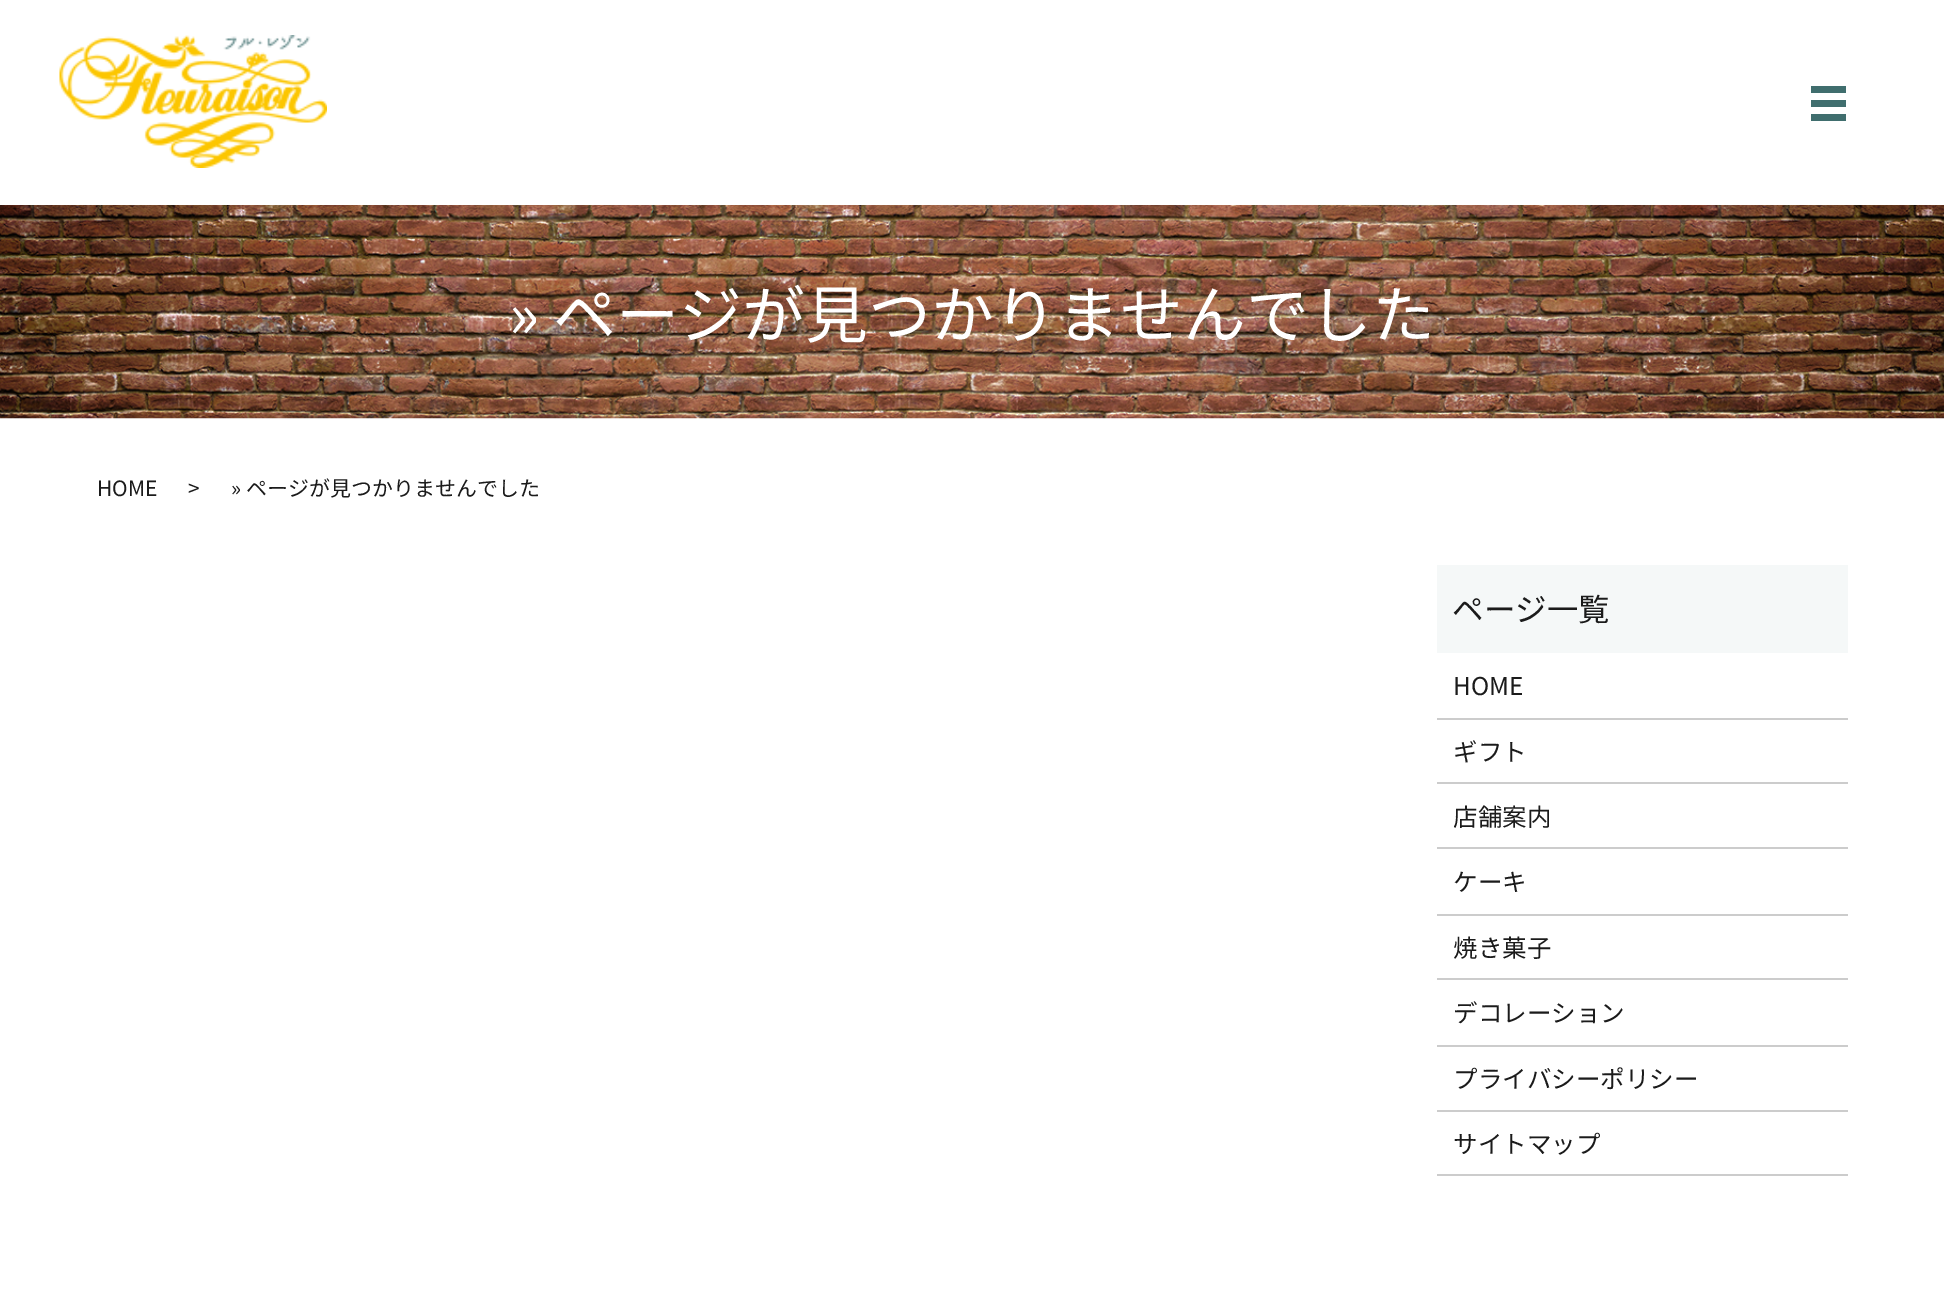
%!PS
<< /PageSize [1944 1298] >> setpagedevice
/C { dup -16 bitshift 255 div exch dup -8 bitshift 255 and 255 div exch 255 and 255 div setrgbcolor } def
/F { [ exch dup neg 0 0 3 -1 roll 0 0 ] selectfont } def
/T { moveto show } def
/R { rectfill } def
/I { 5 dict begin { /h /w /y /x /name } { exch def } forall
  gsave x y translate w h scale
  w h 8 [w 0 0 h 0 0] name (r) file false 3 colorimage grestore end } def
0 1298 translate 1 -1 scale
4 setmiterlimit
16#FFFFFF C
0 0 1944 1298 R
(1.rgb) 59 35 268 133 I
16#406E6E C
1811 86 35 7 R
1811 100 35 7 R
1811 114 35 7 R
(2.rgb) 0 205 1944 214 I
/NotoSansJP-Regular 63 F
16#FFFFFF C
(» ページが見つかりませんでした) 509 338 T
/NotoSansJP-Regular 21 F
16#1B1B1B C
(HOME) 97 496 T
(>) 188 496 T
(» ページが見つかりませんでした) 231 496 T
16#F5F8F8 C
1437 565 411 88 R
/NotoSansJP-Regular 31.5 F
16#1B1B1B C
(ページ一覧) 1452 621 T
16#CCCCCC C
1437 718 411 2 R
/NotoSansJP-Regular 24.5 F
16#1B1B1B C
(HOME) 1453 695 T
16#CCCCCC C
1437 782 411 2 R
16#1B1B1B C
(ギフト) 1453 761 T
16#CCCCCC C
1437 847 411 2 R
16#1B1B1B C
(店舗案内) 1453 826 T
16#CCCCCC C
1437 914 411 2 R
16#1B1B1B C
(ケーキ) 1453 891 T
16#CCCCCC C
1437 978 411 2 R
16#1B1B1B C
(焼き菓子) 1453 957 T
16#CCCCCC C
1437 1045 411 2 R
16#1B1B1B C
(デコレーション) 1453 1022 T
16#CCCCCC C
1437 1110 411 2 R
16#1B1B1B C
(プライバシーポリシー) 1453 1088 T
16#CCCCCC C
1437 1174 411 2 R
16#1B1B1B C
(サイトマップ) 1453 1153 T
showpage
